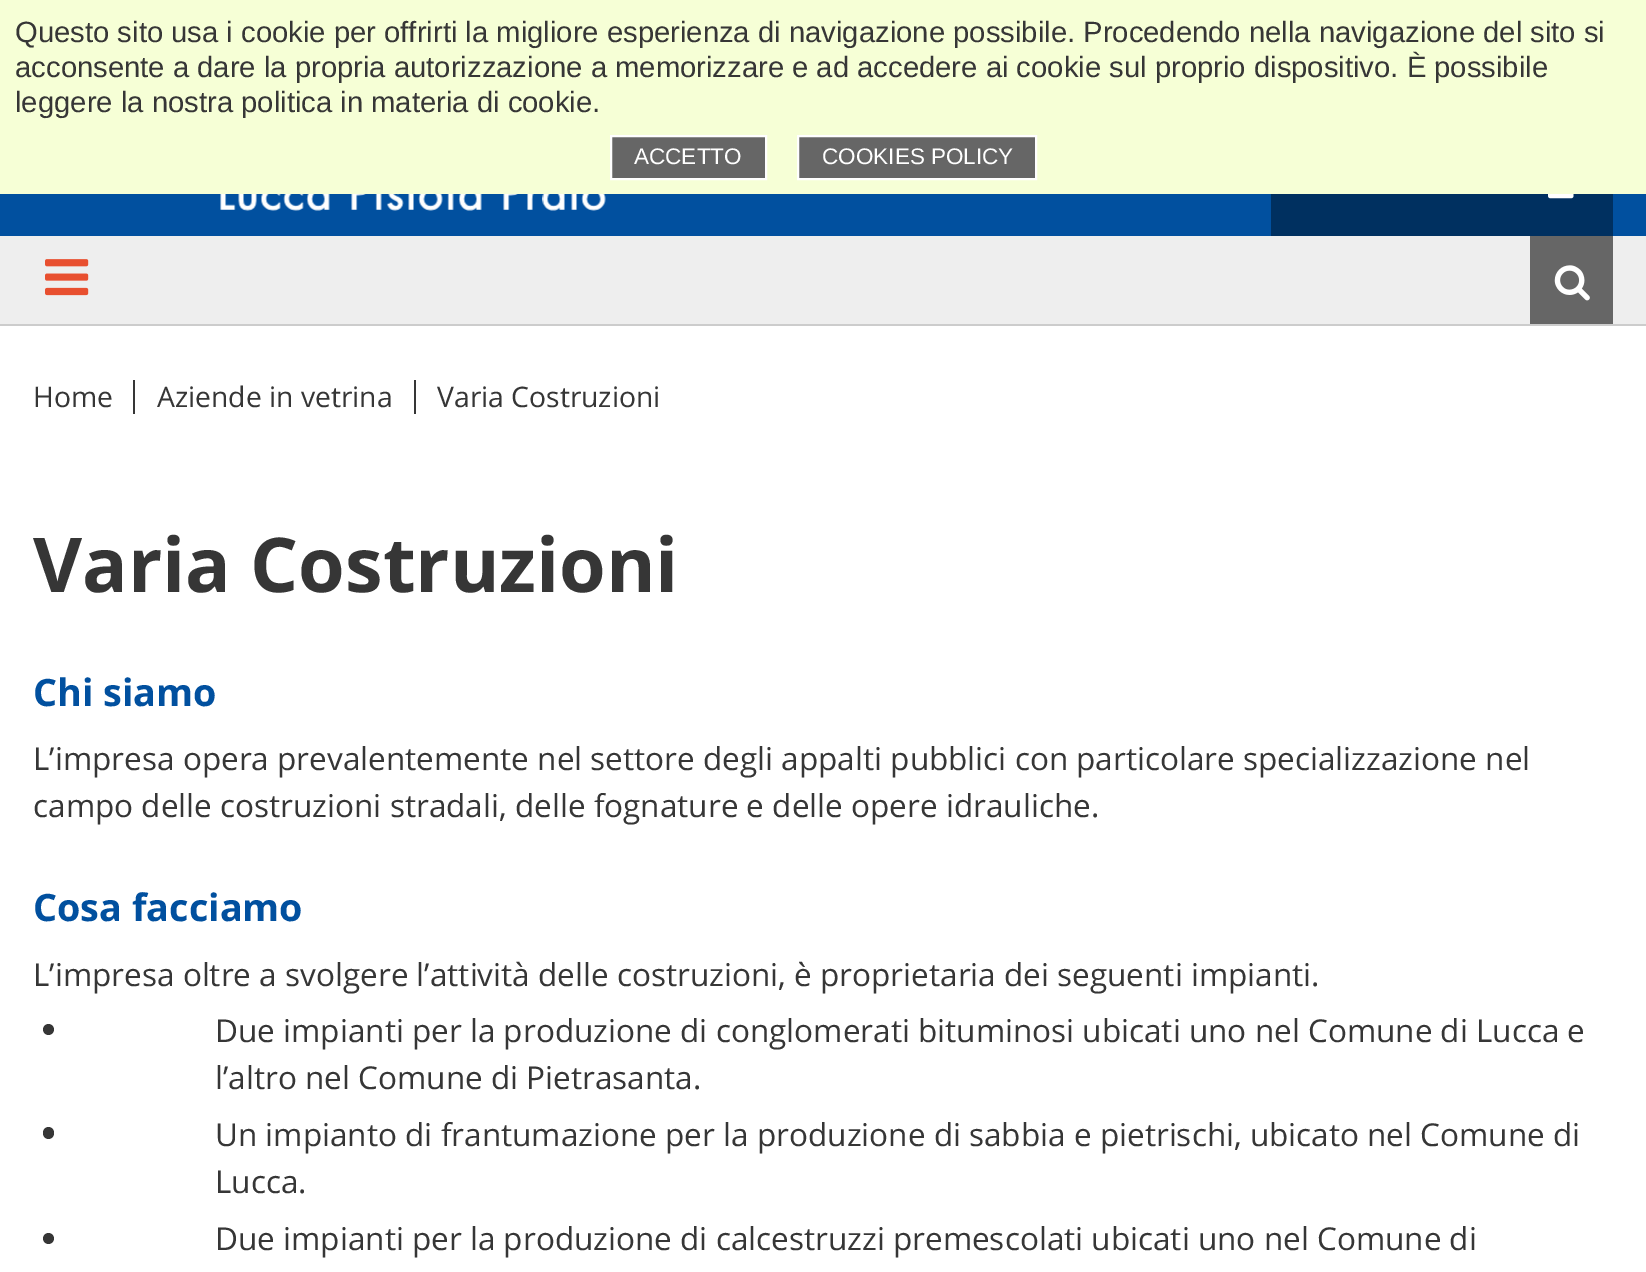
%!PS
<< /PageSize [1646 1272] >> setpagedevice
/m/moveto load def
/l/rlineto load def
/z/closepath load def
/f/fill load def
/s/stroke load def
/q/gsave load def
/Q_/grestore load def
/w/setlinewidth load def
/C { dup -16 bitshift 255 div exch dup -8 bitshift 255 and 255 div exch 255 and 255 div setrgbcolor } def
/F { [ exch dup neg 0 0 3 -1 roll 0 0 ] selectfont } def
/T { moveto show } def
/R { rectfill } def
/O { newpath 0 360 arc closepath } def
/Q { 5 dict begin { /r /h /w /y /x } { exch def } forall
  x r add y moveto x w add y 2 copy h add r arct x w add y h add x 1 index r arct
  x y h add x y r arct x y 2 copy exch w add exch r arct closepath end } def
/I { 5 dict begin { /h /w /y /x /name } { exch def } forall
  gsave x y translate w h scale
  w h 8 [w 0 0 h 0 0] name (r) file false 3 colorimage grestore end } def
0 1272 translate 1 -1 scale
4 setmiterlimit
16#FFFFFF C
0 0 1646 1272 R
16#F6FFD6 C
0 0 1646 194 R
/LiberationSans-Regular 29.25 F
16#363636 C
(Questo sito usa i cookie per offrirti la migliore esperienza di navigazione possibile. Procedendo nella navigazione del sito si) 15 42 T
(acconsente a dare la propria autorizzazione a memorizzare e ad accedere ai cookie sul proprio dispositivo. È possibile) 15 77 T
(leggere la nostra politica in materia di cookie.) 15 112 T
16#666666 C
611 136 m 155 0 l 0 43 l -155 0 l z q f Q_
16#FFFFFF C
2 w
s
/LiberationSans-Regular 22.5 F
(ACCETTO) 634 164 T
16#666666 C
798 136 m 238 0 l 0 43 l -238 0 l z q f Q_
16#FFFFFF C
s
(COOKIES POLICY) 822 164 T
16#01509F C
0 194 1646 42 R
(1.rgb) 220 194 386 17 I
16#003060 C
1271 194 342 42 R
(2.rgb) 1548 194 26 5 I
16#EEEEEE C
0 236 1646 88 R
16#CCCCCC C
0 324 1646 2 R
(3.rgb) 45 259 44 37 I
16#666666 C
1530 236 83 88 R
(4.rgb) 1554 265 36 36 I
16#363636 C
133 380 2 34 R
/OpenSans-Regular 28.25 F
(Home) 33 407 T
414 380 2 34 R
(Aziende in vetrina) 157 407 T
(Varia Costruzioni) 437 407 T
/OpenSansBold-Bold 75.5 F
(Varia Costruzioni) 33 592 T
/OpenSansBold-Bold 37.75 F
16#01509F C
(Chi siamo) 33 706 T
/OpenSans-Regular 31.5 F
16#363636 C
(L’impresa opera prevalentemente nel settore degli appalti pubblici con particolare specializzazione nel) 33 770 T
(campo delle costruzioni stradali, delle fognature e delle opere idrauliche.) 33 817 T
/OpenSansBold-Bold 37.75 F
16#01509F C
(Cosa facciamo) 33 921 T
/OpenSans-Regular 31.5 F
16#363636 C
(L’impresa oltre a svolgere l’attività delle costruzioni, è proprietaria dei seguenti impianti.) 33 986 T
48.5 1029.5 5.5 O f
(Due impianti per la produzione di conglomerati bituminosi ubicati uno nel Comune di Lucca e) 215 1042 T
(l’altro nel Comune di Pietrasanta.) 215 1089 T
43 1127 11 12 5.5 Q f
(Un impianto di frantumazione per la produzione di sabbia e pietrischi, ubicato nel Comune di) 215 1146 T
(Lucca.) 215 1193 T
48.5 1238.5 5.5 O f
(Due impianti per la produzione di calcestruzzi premescolati ubicati uno nel Comune di) 215 1250 T
showpage
